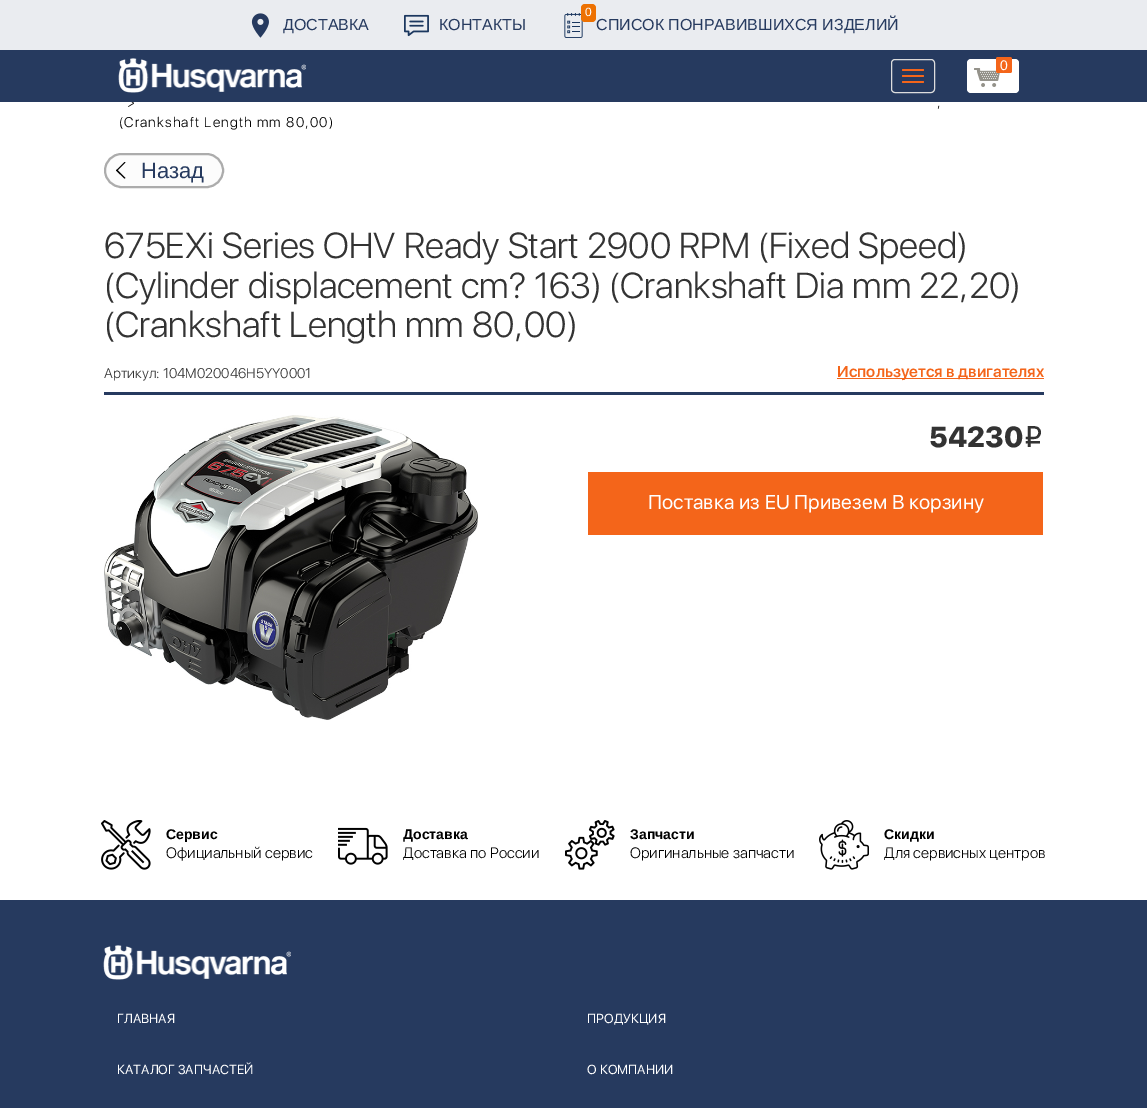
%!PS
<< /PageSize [1147 1108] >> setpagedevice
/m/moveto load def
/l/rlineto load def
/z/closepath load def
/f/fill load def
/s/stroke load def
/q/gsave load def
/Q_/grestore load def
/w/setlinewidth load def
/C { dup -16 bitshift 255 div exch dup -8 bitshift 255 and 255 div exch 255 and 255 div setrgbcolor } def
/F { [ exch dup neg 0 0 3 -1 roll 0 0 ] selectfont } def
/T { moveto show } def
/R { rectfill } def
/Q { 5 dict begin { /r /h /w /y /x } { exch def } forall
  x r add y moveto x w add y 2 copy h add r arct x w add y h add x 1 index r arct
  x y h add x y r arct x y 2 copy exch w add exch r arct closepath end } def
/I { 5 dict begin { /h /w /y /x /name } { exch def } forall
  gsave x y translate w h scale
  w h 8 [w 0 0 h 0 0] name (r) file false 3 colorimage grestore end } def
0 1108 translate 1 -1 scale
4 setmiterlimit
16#FFFFFF C
0 0 1147 1108 R
16#EAECF0 C
0 0 1147 50 R
(1.rgb) 251 13 18 25 I
/LiberationSans-Regular 16 F
16#263A5F C
(ДОСТАВКА) 283 30 T
(2.rgb) 404 14 25 23 I
(КОНТАКТЫ) 439 30 T
(3.rgb) 564 13 19 25 I
16#ED7102 C
581 4 15 18 4 Q f
/LiberationSans-Regular 12 F
16#FFFFFF C
(0) 585 16 T
/LiberationSans-Regular 16 F
16#263A5F C
(СПИСОК ПОНРАВИВШИХСЯ ИЗДЕЛИЙ) 596 30 T
/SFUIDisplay-Light 14 F
16#000000 C
127 107 m 1.1 0 (>) ashow
16#263A5F C
0 50 1147 52 R
(4.rgb) 118 58 188 35 I
16#DDDDDD C
891.5 59.5 43 33 3.5 Q s
16#F4651A C
902 69 22 2 1 Q f
902 75 22 2 1 Q f
902 81 22 2 1 Q f
16#FFFFFF C
967 59 52 34 4 Q f
(5.rgb) 974 68 26 19 I
16#F4651A C
996 57 16 16 2 Q f
/LiberationSans-Regular 14 F
16#FFFFFF C
(0) 1000 70 T
/SFUIDisplay-Light 14 F
16#000000 C
937 107 m 1.1 0 (,) ashow
119 127 m 1.1 0 (\(Crankshaft Length mm 80,00\)) ashow
16#FCFCFC C
105 154 118 33 16.5 Q q f Q_
16#ACACAC C
2 w
s
16#000000 C
116 170.5 m 8.5 -8.5 l 1 .5 l -8.5 8.5 l z f
116 170.5 m 1 -1 l 8.5 8.5 l -1 .5 l z f
/LiberationSans-Regular 22 F
16#263A5F C
(Назад) 141 178 T
/SFUIDisplay-Light 36 F
16#333333 C
(675EXi Series OHV Ready Start 2900 RPM \(Fixed Speed\)) 104 258 T
(\(Cylinder displacement cm? 163\) \(Crankshaft Dia mm 22,20\)) 104 298 T
(\(Crankshaft Length mm 80,00\)) 104 337 T
/SFUIDisplay-Light 14 F
(Артикул: 104M020046H5YY0001) 104 378 T
16#F4651A C
837 378 207 1 R
/SFUIDisplay-SemiBold 16 F
(Используется в двигателях) 837 377 T
16#263A5F C
104 392 940 3 R
(6.rgb) 104 415 374 305 I
/SFUIDisplay-Black 30 F
16#333333 C
(54230) 929 447 T
/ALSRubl-Regular 30 F
(i) 1023 447 T
16#F4651A C
588 472 455 63 R
/SFUIDisplay-Regular 20 F
16#FFFFFF C
(Поставка из EU Привезем В корзину) 648 509 T
(7.rgb) 101 820 50 50 I
/LiberationSans-Bold 14 F
16#000000 C
(Сервис) 166 839 T
/SFUIDisplay-Light 15 F
(Официальный сервис) 166 858 T
(8.rgb) 338 827 50 38 I
/LiberationSans-Bold 14 F
(Доставка) 403 839 T
/SFUIDisplay-Light 15 F
(Доставка по России) 403 858 T
(9.rgb) 565 820 50 50 I
/LiberationSans-Bold 14 F
(Запчасти) 630 839 T
/SFUIDisplay-Light 15 F
(Оригинальные запчасти) 630 858 T
(10.rgb) 819 820 50 50 I
/LiberationSans-Bold 14 F
(Скидки) 884 839 T
/SFUIDisplay-Light 15 F
(Для сервисных центров) 884 858 T
16#263A5F C
0 900 1147 208 R
(4.rgb) 103 945 188 35 I
/SFUIDisplay-Regular 13 F
16#FFFFFF C
(ГЛАВНАЯ) 117 1023 T
(ПРОДУКЦИЯ) 587 1023 T
(КАТАЛОГ ЗАПЧАСТЕЙ) 117 1074 T
(О КОМПАНИИ) 587 1074 T
showpage
